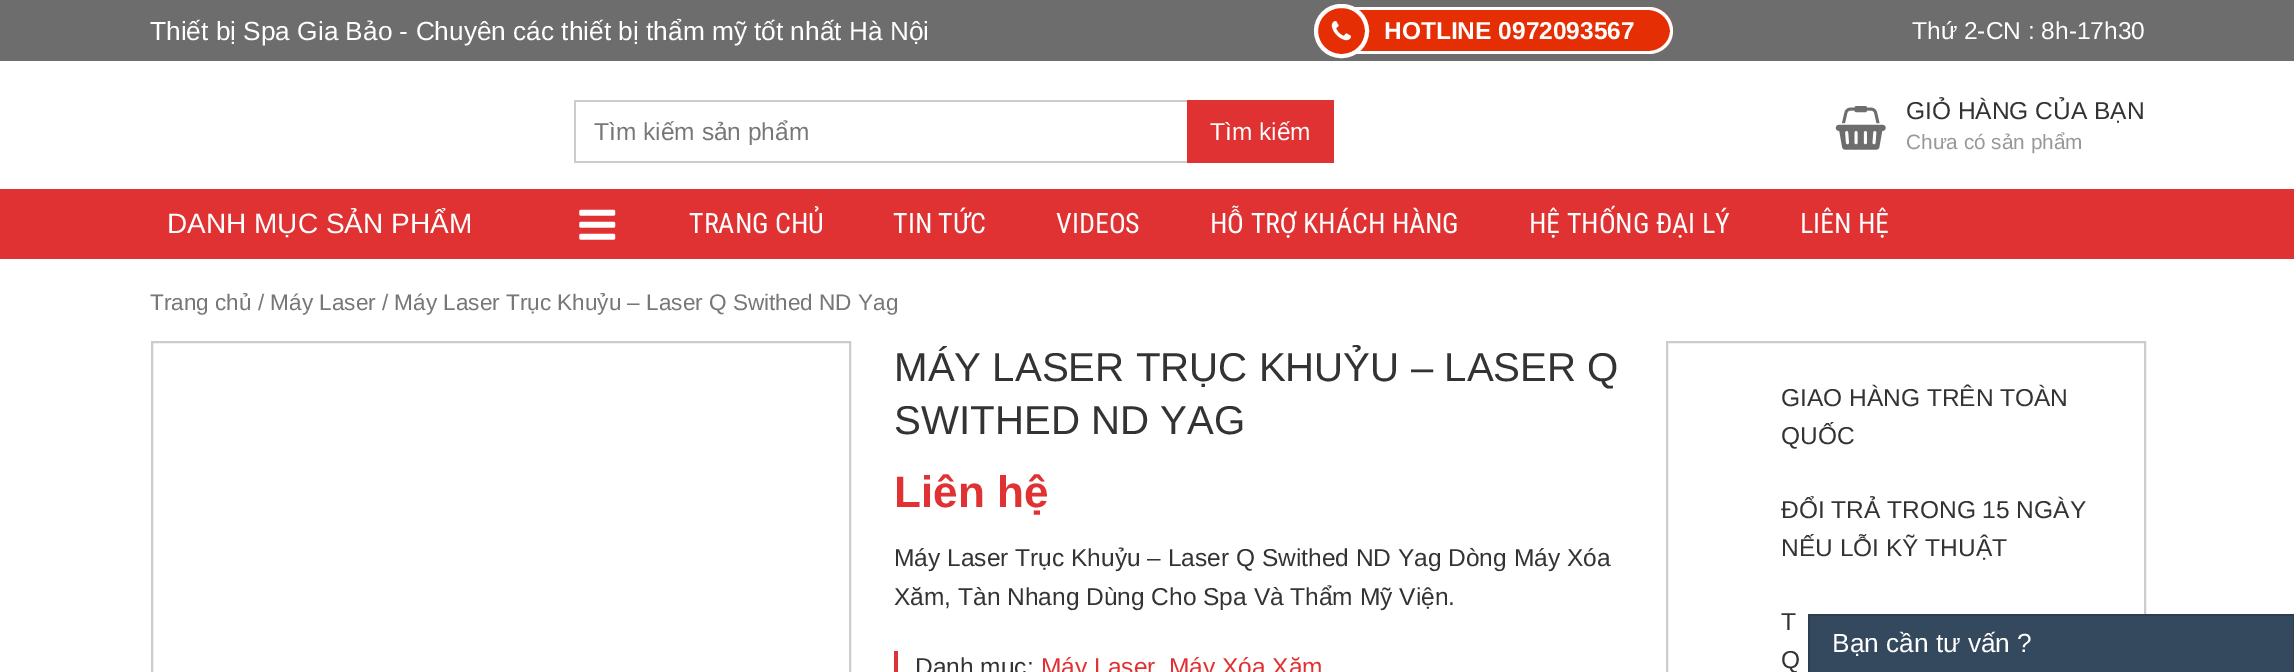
%!PS
<< /PageSize [2294 672] >> setpagedevice
/m/moveto load def
/l/rlineto load def
/c/rcurveto load def
/z/closepath load def
/f/fill load def
/s/stroke load def
/q/gsave load def
/Q_/grestore load def
/w/setlinewidth load def
/C { dup -16 bitshift 255 div exch dup -8 bitshift 255 and 255 div exch 255 and 255 div setrgbcolor } def
/F { [ exch dup neg 0 0 3 -1 roll 0 0 ] selectfont } def
/T { moveto show } def
/R { rectfill } def
/Q { 5 dict begin { /r /h /w /y /x } { exch def } forall
  x r add y moveto x w add y 2 copy h add r arct x w add y h add x 1 index r arct
  x y h add x y r arct x y 2 copy exch w add exch r arct closepath end } def
/I { 5 dict begin { /h /w /y /x /name } { exch def } forall
  gsave x y translate w h scale
  w h 8 [w 0 0 h 0 0] name (r) file false 3 colorimage grestore end } def
0 672 translate 1 -1 scale
4 setmiterlimit
16#FFFFFF C
0 0 2294 672 R
16#6D6D6D C
0 0 2294 61 R
/LiberationSans-Regular 26.25 F
16#FFFFFF C
(Thiết bị Spa Gia Bảo - Chuyên các thiết bị thẩm mỹ tốt nhất Hà Nội) 150 40 T
16#E62E04 C
1349 7 m 300.5 0 l 13 0 23.5 10.5 23.5 23.5 c 0 13 -10.5 23.5 -23.5 23.5 c -300.5 0 l z f
16#FFFFFF C
1349 7 m 300 0 l 13 0 24 11 24 24 c 0 13 -11 23 -24 23 c -300 0 l z 1349 10 m 300 0 l 11 0 21 10 21 21 c 0 11 -10 20 -21 20 c -300 0 l z eofill
16#E62E04 C
1316 6 51 50 25 Q q f Q_
16#FFFFFF C
4 w
s
(1.rgb) 1331 21 20 20 I
/LiberationSans-Bold 24.5 F
(HOTLINE 0972093567) 1384 39 T
/LiberationSans-Regular 24.5 F
(Thứ 2-CN : 8h-17h30) 1912 39 T
16#CCCCCC C
574 100 613 2 R
574 161 613 2 R
574 100 2 63 R
16#777777 C
(Tìm kiếm sản phẩm) 594 140 T
16#E03232 C
1187 100 147 63 R
16#FFFFFF C
(Tìm kiếm) 1210 140 T
(2.rgb) 1835 106 51 44 I
16#333333 C
(GIỎ HÀNG CỦA BẠN) 1906 119 T
/LiberationSans-Regular 20.75 F
16#999999 C
(Chưa có sản phẩm) 1906 149 T
16#E03232 C
0 189 2294 70 R
/LiberationSans-Regular 28 F
16#FFFFFF C
(DANH MỤC SẢN PHẨM) 167 233 T
(3.rgb) 579 209 37 31 I
/RobotoCondensed-Regular 28 F
(TRANG CHỦ) 689 233 T
(TIN TỨC) 893 233 T
(VIDEOS) 1056 233 T
(HỖ TRỢ KHÁCH HÀNG) 1210 233 T
(HỆ THỐNG ĐẠI LÝ) 1529 233 T
(LIÊN HỆ) 1800 233 T
/LiberationSans-Regular 22.55 F
16#777777 C
(Trang chủ / Máy Laser / Máy Laser Trục Khuỷu – Laser Q Swithed ND Yag) 150 310 T
16#CCCCCC C
2 w
152 342 698 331 rectstroke
/LiberationSans-Regular 40.25 F
16#333333 C
(MÁY LASER TRỤC KHUỶU – LASER Q) 894 381 T
(SWITHED ND YAG) 894 434 T
/LiberationSans-Bold 44 F
16#E03232 C
(Liên hệ) 894 507 T
/LiberationSans-Regular 24.5 F
16#333333 C
(Máy Laser Trục Khuỷu – Laser Q Swithed ND Yag Dòng Máy Xóa) 894 566 T
(Xăm, Tàn Nhang Dùng Cho Spa Và Thẩm Mỹ Viện.) 894 605 T
16#E03232 C
894 651 4 21 R
16#333333 C
(Danh mục:) 915 675 T
16#E03232 C
(Máy Laser) 1041 675 T
(Máy Xóa Xăm) 1169 675 T
16#CCCCCC C
1667 342 478 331 rectstroke
16#333333 C
(GIAO HÀNG TRÊN TOÀN) 1781 406 T
(QUỐC) 1781 444 T
(ĐỔI TRẢ TRONG 15 NGÀY) 1781 518 T
(NẾU LỖI KỸ THUẬT) 1781 556 T
(T) 1781 630 T
(Q) 1781 668 T
16#34495E C
1810 616 483 56 R
16#2C3E50 C
1808 614 486 2 R
2293 614 1 58 R
1808 614 2 58 R
/LiberationSans-Regular 26.25 F
16#FFFFFF C
(Bạn cần tư vấn ?) 1832 652 T
showpage
